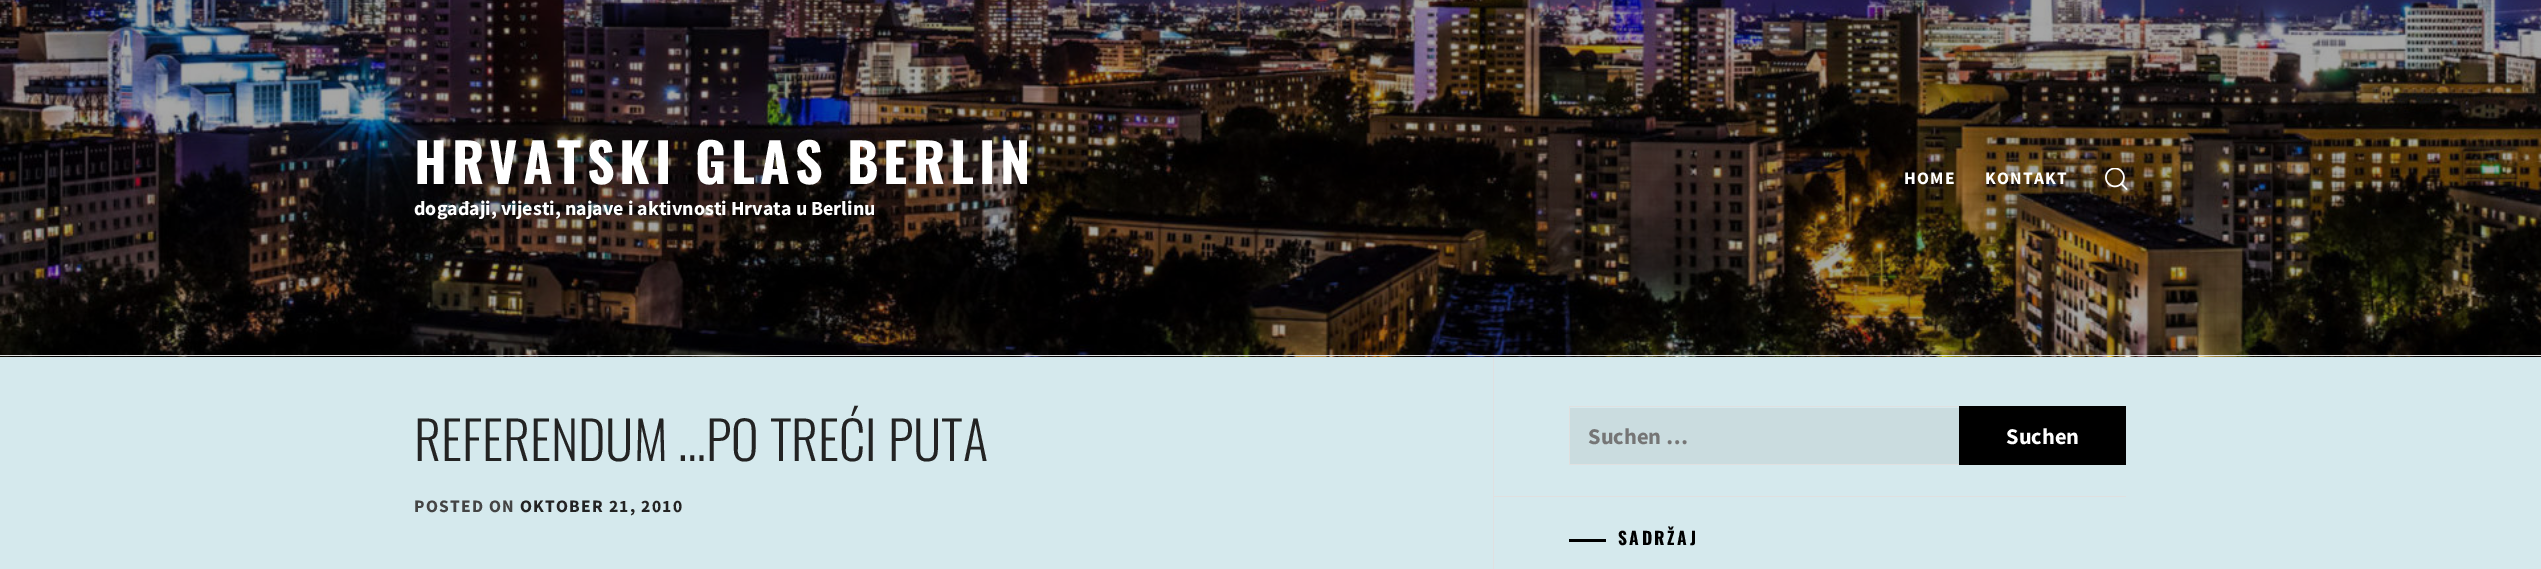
%!PS
<< /PageSize [2541 569] >> setpagedevice
/m/moveto load def
/C { dup -16 bitshift 255 div exch dup -8 bitshift 255 and 255 div exch 255 and 255 div setrgbcolor } def
/F { [ exch dup neg 0 0 3 -1 roll 0 0 ] selectfont } def
/T { moveto show } def
/R { rectfill } def
/I { 5 dict begin { /h /w /y /x /name } { exch def } forall
  gsave x y translate w h scale
  w h 8 [w 0 0 h 0 0] name (r) file false 3 colorimage grestore end } def
0 569 translate 1 -1 scale
4 setmiterlimit
16#D5E9ED C
0 0 2541 569 R
16#E0E0E0 C
1493 356 1 213 R
(1.rgb) 0 0 2541 357 I
0 355 2541 1 R
/Oswald-Bold 54 F
16#FFFFFF C
414 184 m 5 0 (HRVATSKI GLAS BERLIN) ashow
/SourceSansPro-Bold 20 F
(događaji, vijesti, najave i aktivnosti Hrvata u Berlinu) 414 215 T
/SourceSansPro-Bold 17.5 F
1904 184 m 1.25 0 (HOME) ashow
1985 184 m 1.25 0 (KONTAKT) ashow
(2.rgb) 2105 168 23 22 I
/Oswald-Light 52.5 F
16#232323 C
(REFERENDUM …PO TREĆI PUTA) 414 461 T
/SourceSansPro-Bold 17.5 F
16#444444 C
414 512 m 1.25 0 (POSTED ON) ashow
16#232323 C
520 512 m 1.25 0 (OKTOBER 21, 2010) ashow
16#E0E0E0 C
1494 496 632 1 R
16#CADCDF C
1570 408 389 56 R
16#E0E0E0 C
1569 406 390 1 R
1569 464 390 1 R
1569 406 1 59 R
/SourceSansPro-Bold 22.5 F
16#757575 C
(Suchen …) 1588 444 T
16#000000 C
1959 406 167 59 R
16#FFFFFF C
(Suchen) 2006 444 T
16#000000 C
1569 539 37 3 R
/Oswald-Bold 17.5 F
1618 545 m 2.5 0 (SADRŽAJ) ashow
showpage
